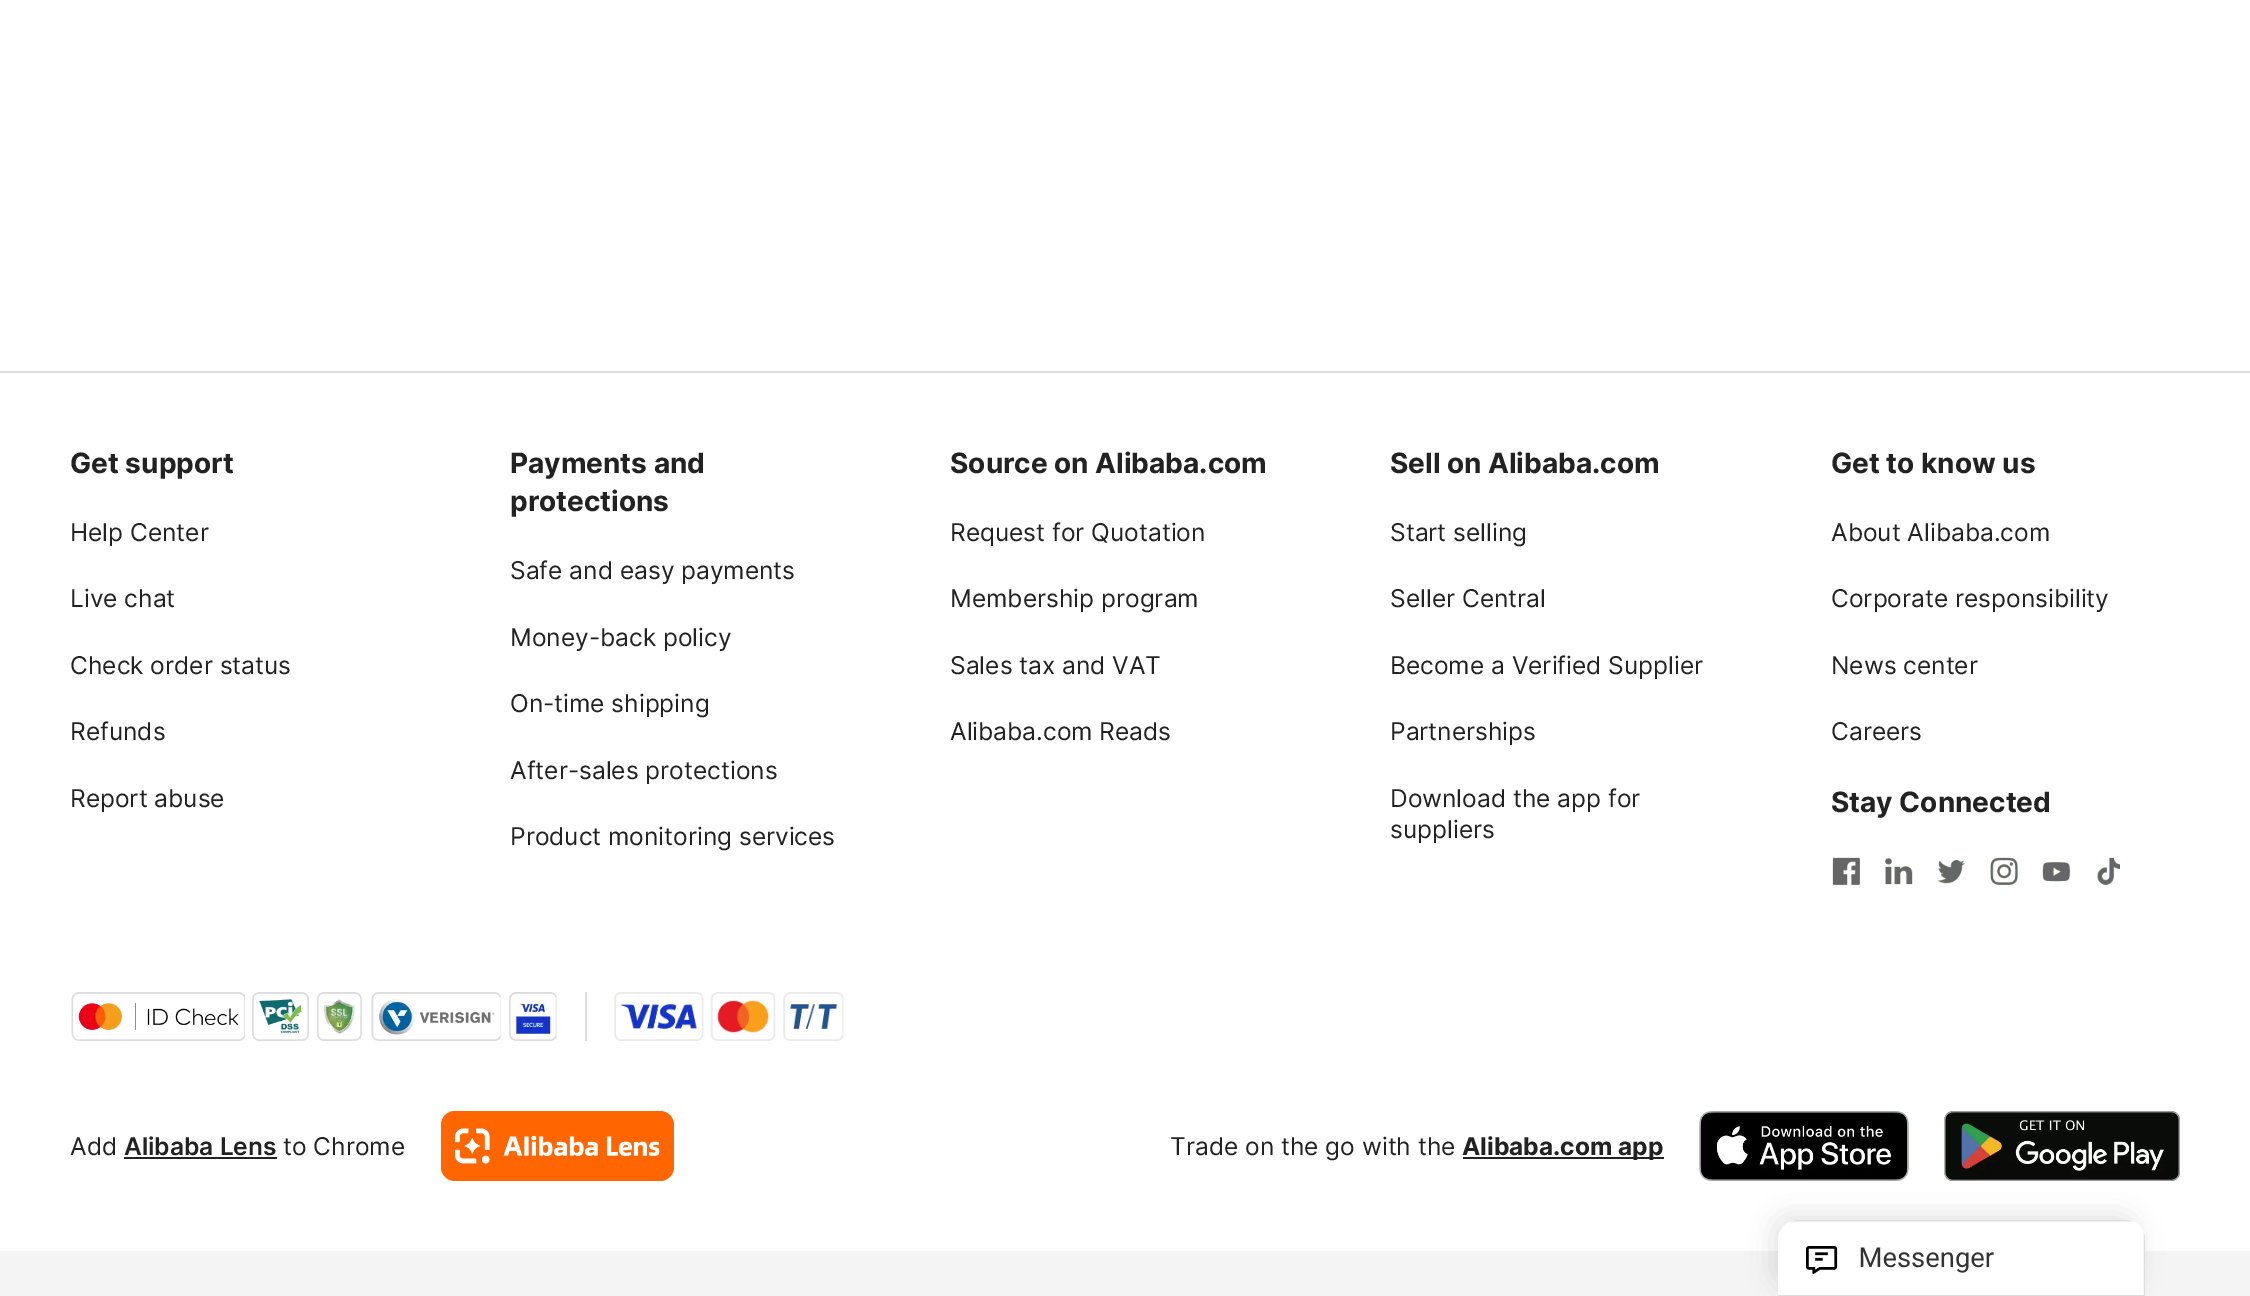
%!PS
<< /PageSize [2250 1296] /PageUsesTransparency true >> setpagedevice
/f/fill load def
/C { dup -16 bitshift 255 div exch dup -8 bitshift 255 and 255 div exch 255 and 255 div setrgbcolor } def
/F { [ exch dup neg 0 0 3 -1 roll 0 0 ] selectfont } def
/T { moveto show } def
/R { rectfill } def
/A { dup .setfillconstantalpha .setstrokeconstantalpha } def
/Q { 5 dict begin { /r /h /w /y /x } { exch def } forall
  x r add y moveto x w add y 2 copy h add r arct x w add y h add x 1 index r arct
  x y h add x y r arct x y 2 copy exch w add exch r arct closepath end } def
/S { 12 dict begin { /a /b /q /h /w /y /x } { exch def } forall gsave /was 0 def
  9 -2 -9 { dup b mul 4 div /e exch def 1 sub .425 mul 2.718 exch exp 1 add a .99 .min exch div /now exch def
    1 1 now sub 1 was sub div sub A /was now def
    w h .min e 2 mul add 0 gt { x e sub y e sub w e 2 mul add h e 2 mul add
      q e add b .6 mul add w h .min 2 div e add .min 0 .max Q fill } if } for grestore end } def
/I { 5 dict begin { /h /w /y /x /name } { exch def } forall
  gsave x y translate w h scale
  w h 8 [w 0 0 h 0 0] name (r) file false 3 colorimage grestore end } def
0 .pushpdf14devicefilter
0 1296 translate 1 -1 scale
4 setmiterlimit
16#FFFFFF C
0 0 2250 1296 R
16#DDDDDD C
0 371 2250 2 R
/Inter-Bold 28 F
16#222222 C
(Get support) 70 473 T
/Inter-Regular 24.5 F
(Help Center) 70 541 T
(Live chat) 70 607 T
(Check order status) 70 674 T
(Refunds) 70 740 T
(Report abuse) 70 807 T
/Inter-Bold 28 F
(Payments and) 510 473 T
(protections) 510 511 T
/Inter-Regular 24.5 F
(Safe and easy payments) 510 579 T
(Money-back policy) 510 646 T
(On-time shipping) 510 712 T
(After-sales protections) 510 779 T
(Product monitoring services) 510 845 T
/Inter-Bold 28 F
(Source on Alibaba.com) 950 473 T
/Inter-Regular 24.5 F
(Request for Quotation) 950 541 T
(Membership program) 950 607 T
(Sales tax and VAT) 950 674 T
(Alibaba.com Reads) 950 740 T
/Inter-Bold 28 F
(Sell on Alibaba.com) 1390 473 T
/Inter-Regular 24.5 F
(Start selling) 1390 541 T
(Seller Central) 1390 607 T
(Become a Verified Supplier) 1390 674 T
(Partnerships) 1390 740 T
(Download the app for) 1390 807 T
(suppliers) 1390 838 T
/Inter-Bold 28 F
(Get to know us) 1831 473 T
/Inter-Regular 24.5 F
(About Alibaba.com) 1831 541 T
(Corporate responsibility) 1831 607 T
(News center) 1831 674 T
(Careers) 1831 740 T
/Inter-Bold 28 F
(Stay Connected) 1831 812 T
(1.rgb) 1832 857 28 28 I
(2.rgb) 1885 857 28 28 I
(3.rgb) 1937 860 28 24 I
(4.rgb) 1990 857 28 28 I
(5.rgb) 2042 862 28 20 I
(6.rgb) 2097 857 23 28 I
(7.rgb) 71 992 174 49 I
(8.rgb) 252 992 58 49 I
(9.rgb) 316 992 47 49 I
(10.rgb) 371 992 130 49 I
(11.rgb) 509 992 48 49 I
16#DDDDDD C
585 992 2 49 R
(12.rgb) 614 992 90 49 I
(13.rgb) 710 992 66 49 I
(14.rgb) 783 992 61 49 I
/Inter-Regular 24.5 F
16#222222 C
(Add) 70 1155 T
/Inter-SemiBold 24.5 F
(Alibaba Lens) 124 1155 T
124 1157 153 2 R
/Inter-Regular 24.5 F
(to Chrome) 283 1155 T
16#FF6601 C
441 1111 233 70 14 Q f
(15.rgb) 455 1128 205 36 I
16#222222 C
(Trade on the go with the) 1170 1155 T
1463 1157 201 2 R
/Inter-Bold 24.5 F
(Alibaba.com app) 1462 1155 T
(16.rgb) 1699 1111 210 70 I
(17.rgb) 1944 1111 236 70 I
16#F4F4F4 C
0 1251 2250 45 R
16#000000 C
1771 1213 368 77 21 12 .1 S
(18.rgb) 1778 1220 368 76 I
.poppdf14devicefilter showpage
